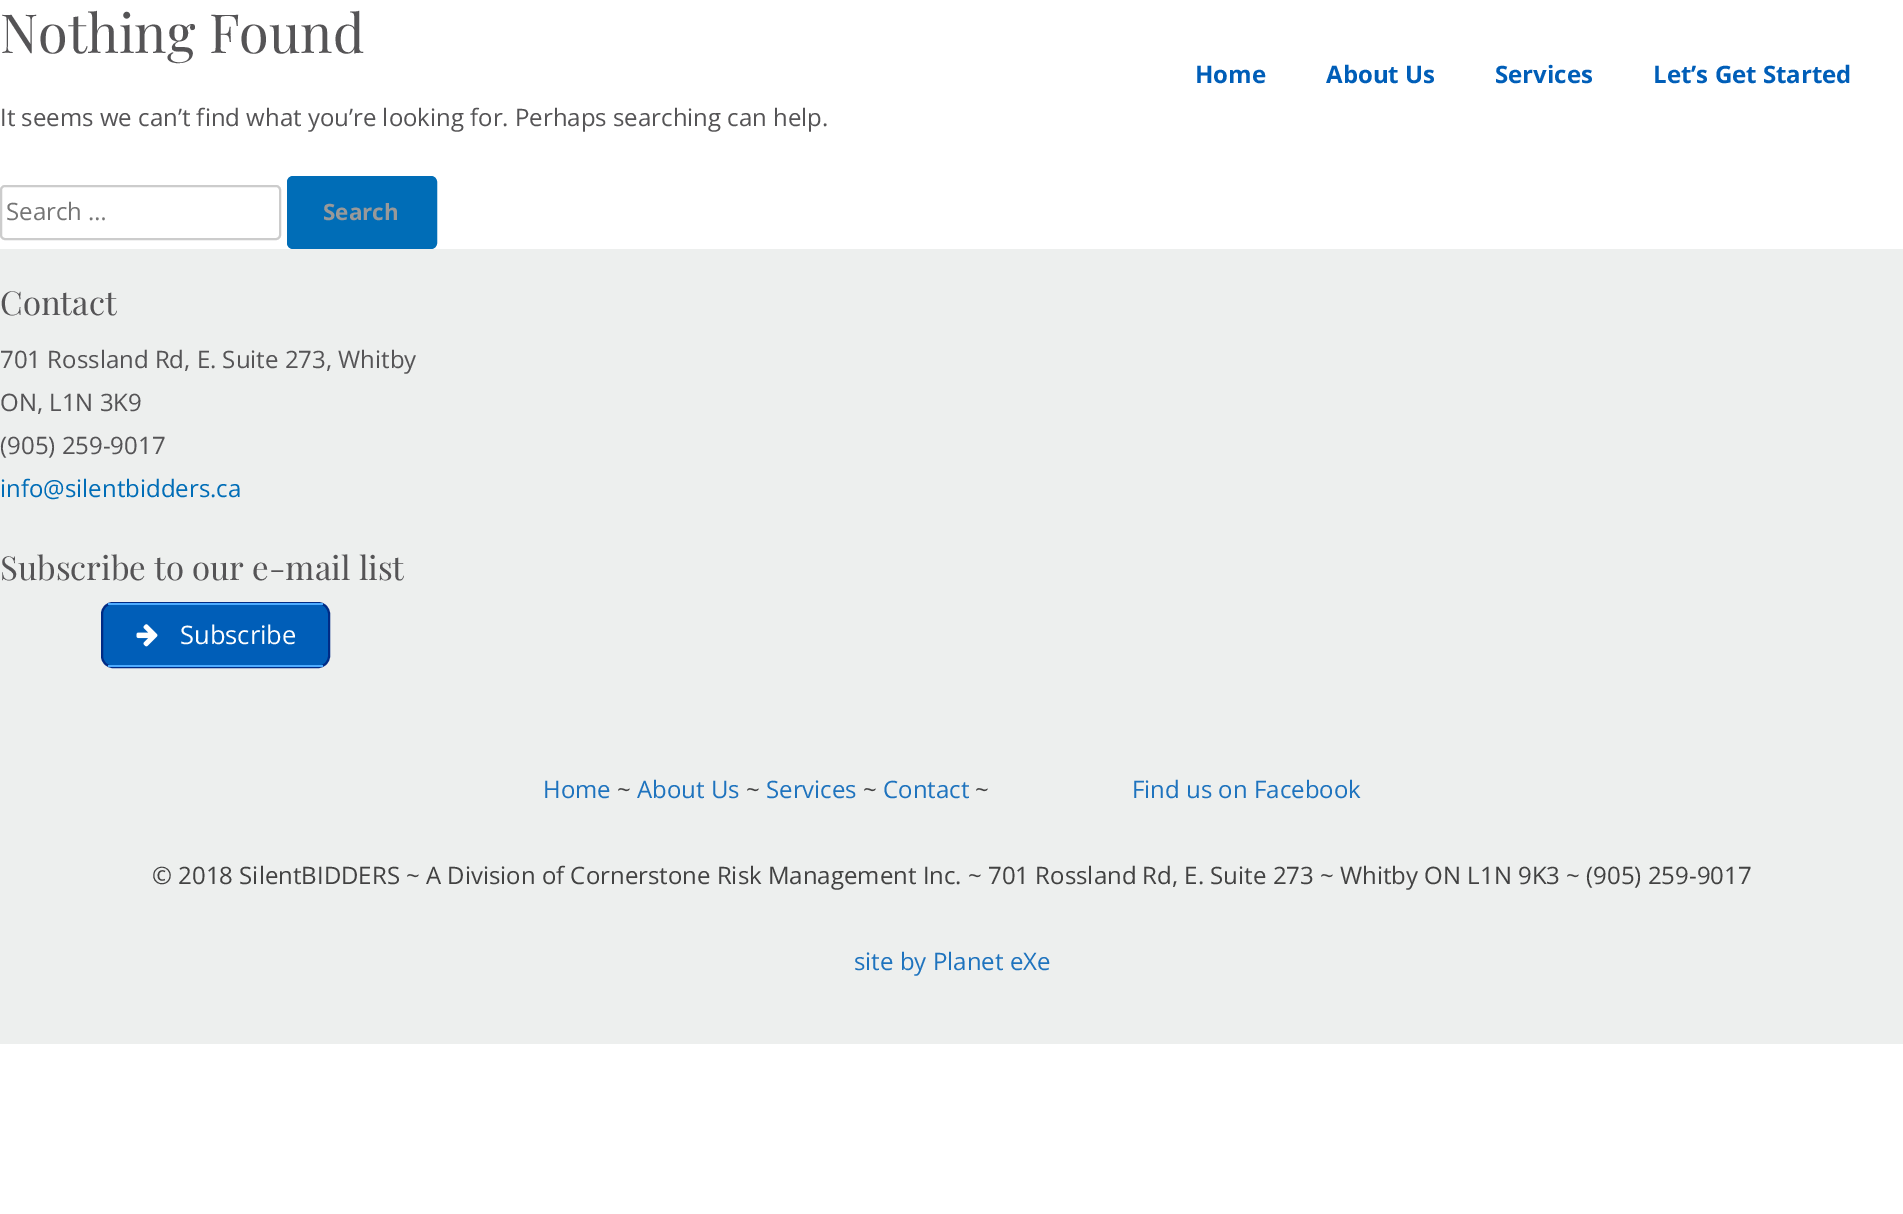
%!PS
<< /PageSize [1903 1214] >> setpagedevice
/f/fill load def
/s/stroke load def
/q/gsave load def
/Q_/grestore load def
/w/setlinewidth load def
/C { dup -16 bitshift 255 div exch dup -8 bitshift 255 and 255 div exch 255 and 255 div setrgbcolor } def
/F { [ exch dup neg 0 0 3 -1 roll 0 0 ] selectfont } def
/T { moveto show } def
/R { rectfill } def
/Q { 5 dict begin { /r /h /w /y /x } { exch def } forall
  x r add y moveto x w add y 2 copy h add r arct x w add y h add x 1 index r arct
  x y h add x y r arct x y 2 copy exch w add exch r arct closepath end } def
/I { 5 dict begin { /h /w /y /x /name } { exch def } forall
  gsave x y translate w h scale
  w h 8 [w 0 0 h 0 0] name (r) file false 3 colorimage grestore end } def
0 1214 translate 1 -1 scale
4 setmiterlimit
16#FFFFFF C
0 0 1903 1214 R
/PlayfairDisplay-Regular 54 F
16#555456 C
(Nothing Found) 0 53 T
/OpenSans-Regular 24 F
(It seems we can’t find what you’re looking for. Perhaps searching can help.) 0 126 T
16#CCCCCC C
2 w
1 186 279 53 4 Q s
16#757575 C
(Search …) 6 220 T
16#006DB7 C
288.5 177.5 147 70 4.5 Q q f Q_
3 w
s
/OpenSans-Bold 22.5 F
16#999999 C
(Search) 323 220 T
/OpenSans-Bold 24 F
16#005EB8 C
(Home) 1195 83 T
(About Us) 1326 83 T
(Services) 1495 83 T
(Let’s Get Started) 1653 83 T
16#EDEFEE C
0 249 1903 795 R
/PlayfairDisplay-Regular 33 F
16#555456 C
(Contact) 0 315 T
/OpenSans-Regular 24 F
(701 Rossland Rd, E. Suite 273, Whitby) 0 368 T
(ON, L1N 3K9) 0 411 T
(\(905\) 259-9017) 0 454 T
16#006DB7 C
(info@silentbidders.ca) 0 497 T
/PlayfairDisplay-Regular 33 F
16#555456 C
(Subscribe to our e-mail list) 0 580 T
16#005EB8 C
102 603 227 64 11 Q q f Q_
16#002B85 C
2 w
s
16#4DABFF C
108 603 215 2 R
108 665 215 2 R
(1.rgb) 136 624 22 23 I
/OpenSans-Regular 25.5 F
16#FFFFFF C
(Subscribe) 180 644 T
/OpenSans-Regular 24 F
16#1E73BE C
(Home) 543 798 T
16#424242 C
(~) 617 798 T
16#1E73BE C
(About Us) 637 798 T
16#424242 C
(~) 746 798 T
16#1E73BE C
(Services) 766 798 T
16#424242 C
(~) 863 798 T
16#1E73BE C
(Contact) 883 798 T
16#424242 C
(~) 975 798 T
16#1E73BE C
(Find us on Facebook) 1132 798 T
16#424242 C
(© 2018 SilentBIDDERS ~ A Division of Cornerstone Risk Management Inc. ~ 701 Rossland Rd, E. Suite 273 ~ Whitby ON L1N 9K3 ~ \(905\) 259-9017) 152 884 T
16#1E73BE C
(site by Planet eXe) 854 970 T
showpage
